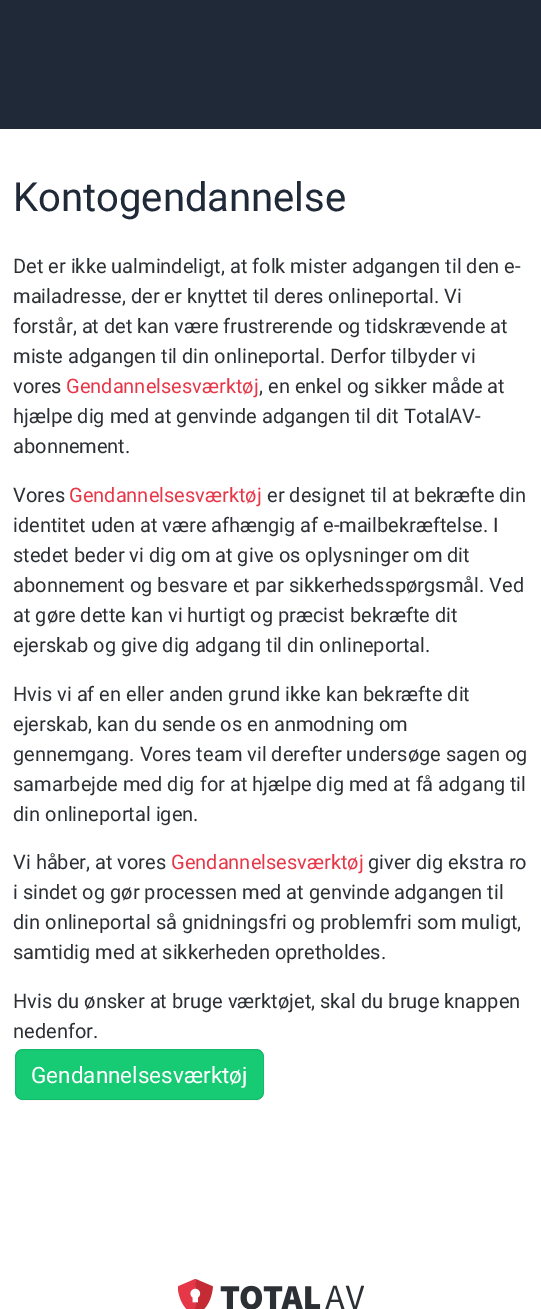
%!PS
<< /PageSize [541 1309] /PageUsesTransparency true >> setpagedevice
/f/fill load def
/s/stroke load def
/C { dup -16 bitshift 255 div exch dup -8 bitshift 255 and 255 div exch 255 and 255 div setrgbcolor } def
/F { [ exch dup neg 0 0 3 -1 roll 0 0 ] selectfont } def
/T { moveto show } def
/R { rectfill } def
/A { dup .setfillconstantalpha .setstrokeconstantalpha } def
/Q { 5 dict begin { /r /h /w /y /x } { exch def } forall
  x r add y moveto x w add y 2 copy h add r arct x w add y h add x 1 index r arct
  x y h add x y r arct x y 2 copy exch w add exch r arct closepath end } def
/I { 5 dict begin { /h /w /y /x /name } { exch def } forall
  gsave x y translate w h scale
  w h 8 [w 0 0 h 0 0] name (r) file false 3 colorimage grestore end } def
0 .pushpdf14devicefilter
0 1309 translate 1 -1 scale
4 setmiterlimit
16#FFFFFF C
0 0 541 1309 R
16#1F2937 C
0 0 541 129 R
/Roboto-Regular 40 F
(Kontogendannelse) 13 211 T
/Roboto-Regular 20 F
16#2C3035 C
(Det er ikke ualmindeligt, at folk mister adgangen til den e-) 13 273 T
(mailadresse, der er knyttet til deres onlineportal. Vi) 13 303 T
(forstår, at det kan være frustrerende og tidskrævende at) 13 333 T
(miste adgangen til din onlineportal. Derfor tilbyder vi) 13 363 T
(vores) 13 393 T
16#E63748 C
(Gendannelsesværktøj) 66 393 T
16#2C3035 C
(, en enkel og sikker måde at) 259 393 T
(hjælpe dig med at genvinde adgangen til dit TotalAV-) 13 423 T
(abonnement.) 13 453 T
(Vores) 13 502 T
16#E63748 C
(Gendannelsesværktøj) 69 502 T
16#2C3035 C
(er designet til at bekræfte din) 267 502 T
(identitet uden at være afhængig af e-mailbekræftelse. I) 13 532 T
(stedet beder vi dig om at give os oplysninger om dit) 13 562 T
(abonnement og besvare et par sikkerhedsspørgsmål. Ved) 13 592 T
(at gøre dette kan vi hurtigt og præcist bekræfte dit) 13 622 T
(ejerskab og give dig adgang til din onlineportal.) 13 652 T
(Hvis vi af en eller anden grund ikke kan bekræfte dit) 13 701 T
(ejerskab, kan du sende os en anmodning om) 13 731 T
(gennemgang. Vores team vil derefter undersøge sagen og) 13 761 T
(samarbejde med dig for at hjælpe dig med at få adgang til) 13 791 T
(din onlineportal igen.) 13 821 T
(Vi håber, at vores) 13 869 T
16#E63748 C
(Gendannelsesværktøj) 171 869 T
16#2C3035 C
(giver dig ekstra ro) 368 869 T
(i sindet og gør processen med at genvinde adgangen til) 13 899 T
(din onlineportal så gnidningsfri og problemfri som muligt,) 13 929 T
(samtidig med at sikkerheden opretholdes.) 13 959 T
(Hvis du ønsker at bruge værktøjet, skal du bruge knappen) 13 1008 T
(nedenfor.) 13 1038 T
16#17CB74 C
15 1049 249 51 8 Q f
0.1 A
16#0D0D0D C
15.5 1049.5 248 50 7.5 Q s
/Roboto-Regular 22.5 F
1 A
16#FFFFFF C
(Gendannelsesværktøj) 31 1083 T
(1.rgb) 178 1279 186 30 I
.poppdf14devicefilter showpage
